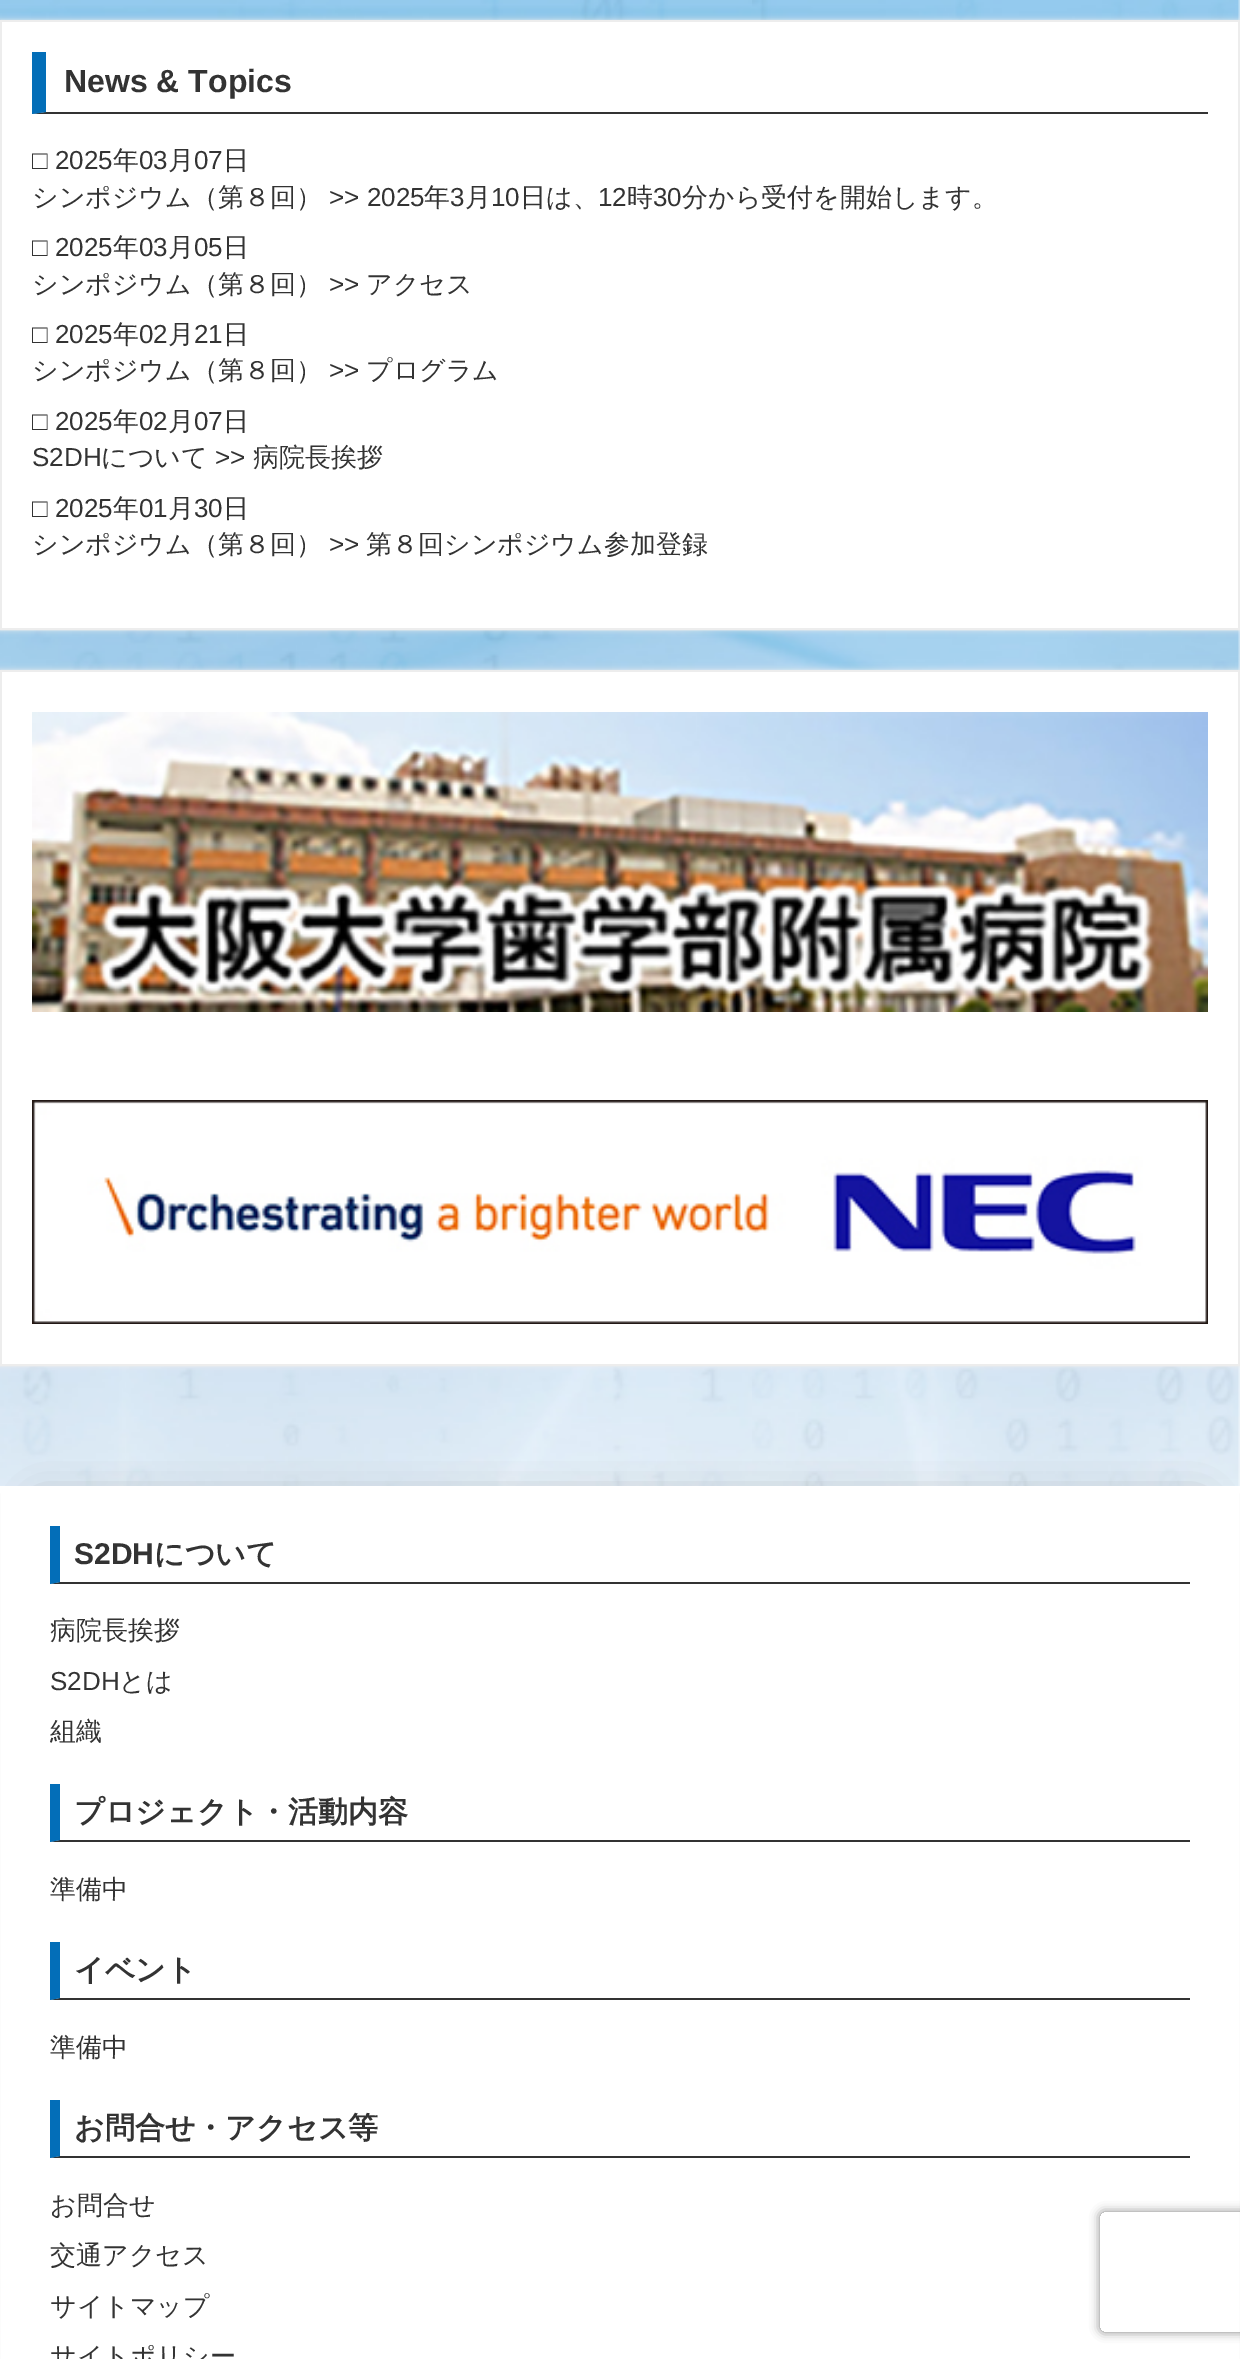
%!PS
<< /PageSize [1240 2359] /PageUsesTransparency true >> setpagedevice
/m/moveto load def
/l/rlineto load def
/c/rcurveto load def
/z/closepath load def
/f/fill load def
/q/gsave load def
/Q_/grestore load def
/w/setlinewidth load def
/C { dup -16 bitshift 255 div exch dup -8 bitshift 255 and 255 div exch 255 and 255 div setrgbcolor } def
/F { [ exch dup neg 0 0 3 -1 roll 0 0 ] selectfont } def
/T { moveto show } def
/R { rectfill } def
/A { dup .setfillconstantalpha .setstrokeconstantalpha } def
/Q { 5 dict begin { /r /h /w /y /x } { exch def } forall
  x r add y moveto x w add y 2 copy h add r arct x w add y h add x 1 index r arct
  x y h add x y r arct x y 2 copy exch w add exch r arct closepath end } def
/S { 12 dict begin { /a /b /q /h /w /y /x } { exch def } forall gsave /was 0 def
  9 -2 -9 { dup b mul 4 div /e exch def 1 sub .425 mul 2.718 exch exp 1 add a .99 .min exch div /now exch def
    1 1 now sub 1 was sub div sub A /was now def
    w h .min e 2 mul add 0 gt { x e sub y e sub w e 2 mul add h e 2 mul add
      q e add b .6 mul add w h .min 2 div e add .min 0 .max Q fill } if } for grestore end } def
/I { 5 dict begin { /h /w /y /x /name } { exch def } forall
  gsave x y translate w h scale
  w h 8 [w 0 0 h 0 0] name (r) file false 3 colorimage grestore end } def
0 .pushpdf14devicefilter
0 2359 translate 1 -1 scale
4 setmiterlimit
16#FFFFFF C
0 0 1240 2359 R
(1.rgb) 0 0 1240 1486 I
16#EDEDED C
2 w
1 21 1238 608 rectstroke
0 20 1240 610 0 3 1 S
16#FFFFFF C
2 22 1236 606 R
16#333333 C
1208 114 m -1176 0 l 14 -2 l 1162 0 l z f
16#036EB8 C
32 114 m 0 -62 l 14 0 l 0 60 l z f
/LiberationSans-Bold 32 F
16#333333 C
(News & Topics) 64 92 T
/LiberationSans-Regular 26 F
(□ 2025) 32 169 T
/WenQuanYiZenHei-Medium 26 F
(年) 113 169 T
/LiberationSans-Regular 26 F
(03) 139 169 T
/WenQuanYiZenHei-Medium 26 F
(月) 168 169 T
/LiberationSans-Regular 26 F
(07) 194 169 T
/WenQuanYiZenHei-Medium 26 F
(日) 223 169 T
(シンポジウム（第８回）) 32 206 T
/LiberationSans-Regular 26 F
(>> 2025) 329 206 T
/WenQuanYiZenHei-Medium 26 F
(年) 424 206 T
/LiberationSans-Regular 26 F
(3) 450 206 T
/WenQuanYiZenHei-Medium 26 F
(月) 465 206 T
/LiberationSans-Regular 26 F
(10) 491 206 T
/WenQuanYiZenHei-Medium 26 F
(日は、) 520 206 T
/LiberationSans-Regular 26 F
(12) 598 206 T
/WenQuanYiZenHei-Medium 26 F
(時) 627 206 T
/LiberationSans-Regular 26 F
(30) 653 206 T
/WenQuanYiZenHei-Medium 26 F
(分から受付を開始します。) 682 206 T
/LiberationSans-Regular 26 F
(□ 2025) 32 256 T
/WenQuanYiZenHei-Medium 26 F
(年) 113 256 T
/LiberationSans-Regular 26 F
(03) 139 256 T
/WenQuanYiZenHei-Medium 26 F
(月) 168 256 T
/LiberationSans-Regular 26 F
(05) 194 256 T
/WenQuanYiZenHei-Medium 26 F
(日) 223 256 T
(シンポジウム（第８回）) 32 293 T
/LiberationSans-Regular 26 F
(>>) 329 293 T
/WenQuanYiZenHei-Medium 26 F
(アクセス) 366 293 T
/LiberationSans-Regular 26 F
(□ 2025) 32 343 T
/WenQuanYiZenHei-Medium 26 F
(年) 113 343 T
/LiberationSans-Regular 26 F
(02) 139 343 T
/WenQuanYiZenHei-Medium 26 F
(月) 168 343 T
/LiberationSans-Regular 26 F
(21) 194 343 T
/WenQuanYiZenHei-Medium 26 F
(日) 223 343 T
(シンポジウム（第８回）) 32 379 T
/LiberationSans-Regular 26 F
(>>) 329 379 T
/WenQuanYiZenHei-Medium 26 F
(プログラム) 366 379 T
/LiberationSans-Regular 26 F
(□ 2025) 32 430 T
/WenQuanYiZenHei-Medium 26 F
(年) 113 430 T
/LiberationSans-Regular 26 F
(02) 139 430 T
/WenQuanYiZenHei-Medium 26 F
(月) 168 430 T
/LiberationSans-Regular 26 F
(07) 194 430 T
/WenQuanYiZenHei-Medium 26 F
(日) 223 430 T
/LiberationSans-Regular 26 F
(S2DH) 32 466 T
/WenQuanYiZenHei-Medium 26 F
(について) 101 466 T
/LiberationSans-Regular 26 F
(>>) 215 466 T
/WenQuanYiZenHei-Medium 26 F
(病院長挨拶) 253 466 T
/LiberationSans-Regular 26 F
(□ 2025) 32 517 T
/WenQuanYiZenHei-Medium 26 F
(年) 113 517 T
/LiberationSans-Regular 26 F
(01) 139 517 T
/WenQuanYiZenHei-Medium 26 F
(月) 168 517 T
/LiberationSans-Regular 26 F
(30) 194 517 T
/WenQuanYiZenHei-Medium 26 F
(日) 223 517 T
(シンポジウム（第８回）) 32 553 T
/LiberationSans-Regular 26 F
(>>) 329 553 T
/WenQuanYiZenHei-Medium 26 F
(第８回シンポジウム参加登録) 366 553 T
16#EDEDED C
1 671 1238 694 rectstroke
0 670 1240 696 0 3 1 S
16#FFFFFF C
2 672 1236 692 R
(2.rgb) 32 712 1176 300 I
(3.rgb) 32 1100 1176 224 I
16#999999 C
40 1506 1160 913 0 20 1 S
16#FFFFFF C
1 1486 1238 873 R
16#333333 C
1190 1584 m -1140 0 l 10 -2 l 1130 0 l z f
16#036EB8 C
50 1584 m 0 -58 l 10 0 l 0 56 l z f
/LiberationSans-Bold 30 F
16#333333 C
(S2DH) 74 1564 T
/WenQuanYiZenHei-Bold 30 F
(について) 154 1564 T
/WenQuanYiZenHei-Medium 26 F
(病院長挨拶) 50 1639 T
/LiberationSans-Regular 26 F
(S2DH) 50 1690 T
/WenQuanYiZenHei-Medium 26 F
(とは) 119 1690 T
(組織) 50 1740 T
1190 1842 m -1140 0 l 10 -2 l 1130 0 l z f
16#036EB8 C
50 1842 m 0 -58 l 10 0 l 0 56 l z f
/WenQuanYiZenHei-Bold 30 F
16#333333 C
(プロジェクト・活動内容) 74 1822 T
/WenQuanYiZenHei-Medium 26 F
(準備中) 50 1898 T
1190 2000 m -1140 0 l 10 -2 l 1130 0 l z f
16#036EB8 C
50 2000 m 0 -58 l 10 0 l 0 56 l z f
/WenQuanYiZenHei-Bold 30 F
16#333333 C
(イベント) 74 1980 T
/WenQuanYiZenHei-Medium 26 F
(準備中) 50 2056 T
1190 2158 m -1140 0 l 10 -2 l 1130 0 l z f
16#036EB8 C
50 2158 m 0 -58 l 10 0 l 0 56 l z f
/WenQuanYiZenHei-Bold 30 F
16#333333 C
(お問合せ・アクセス等) 74 2138 T
/WenQuanYiZenHei-Medium 26 F
(お問合せ) 50 2214 T
(交通アクセス) 50 2264 T
(サイトマップ) 50 2315 T
(サイトポリシー) 50 2365 T
q
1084 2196 m 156 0 l 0 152 l -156 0 l z 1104 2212 m 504 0 l 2 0 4 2 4 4 c 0 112 l 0 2 -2 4 -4 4 c -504 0 l -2 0 -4 -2 -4 -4 c 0 -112 l 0 -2 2 -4 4 -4 c z eoclip newpath
16#808080 C
1100 2212 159 120 4 5 1 S
Q_
.poppdf14devicefilter showpage
